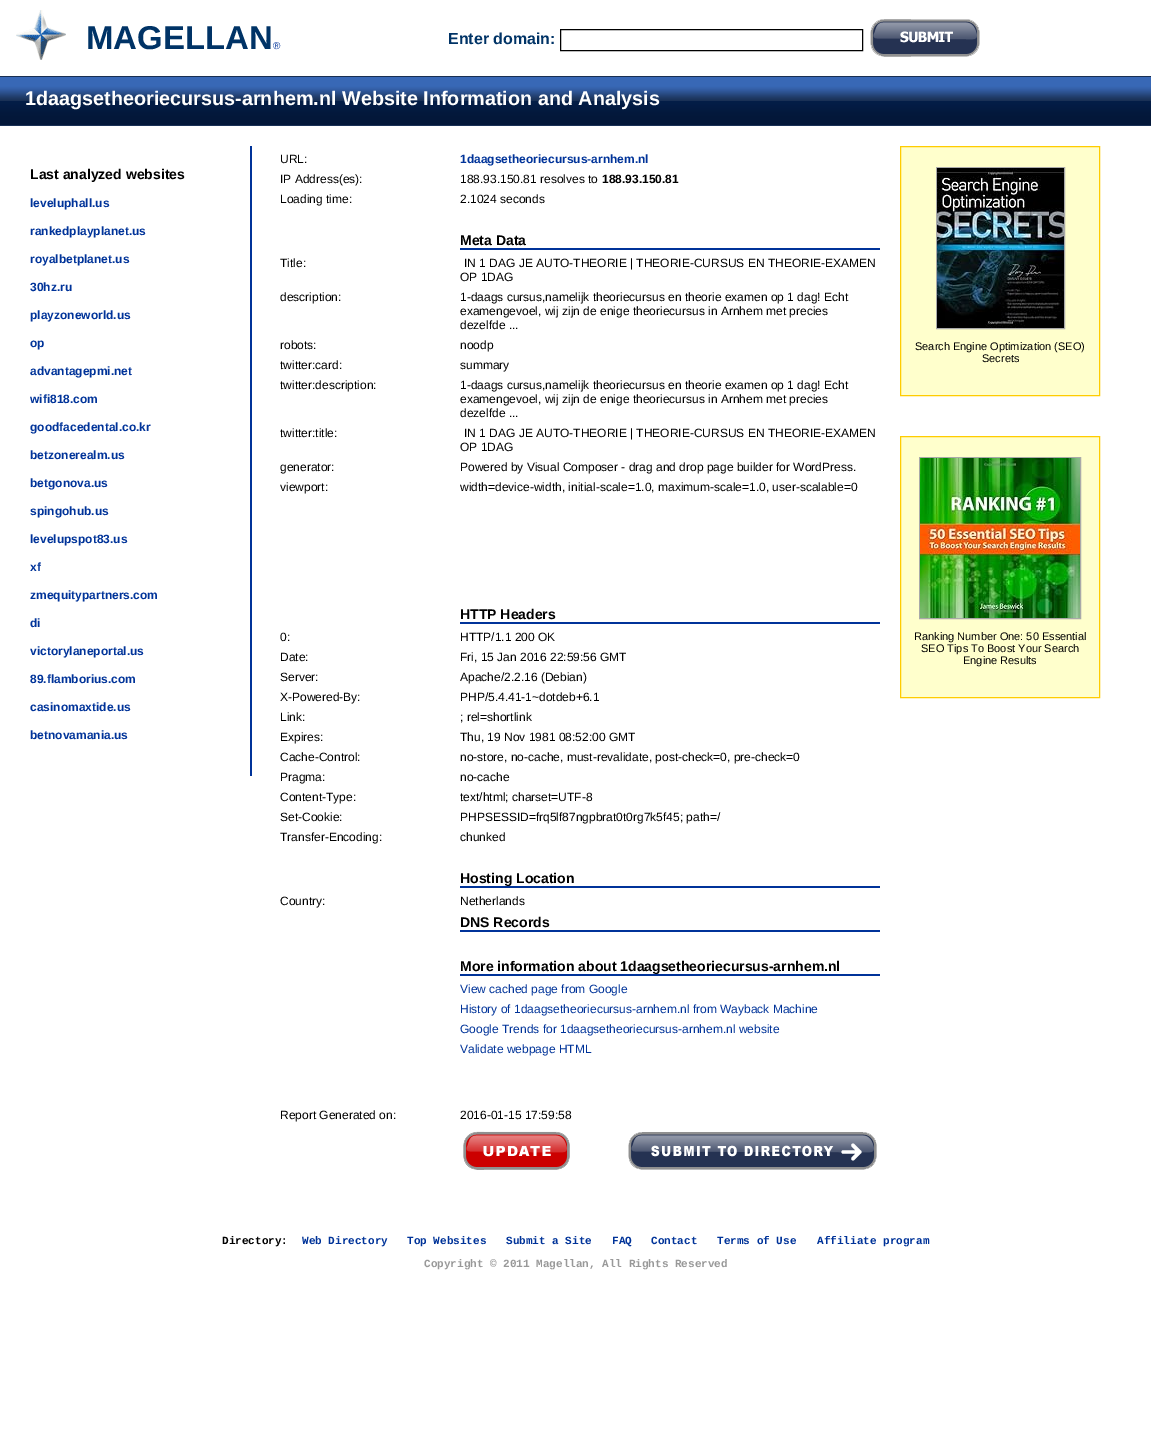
%!PS
<< /PageSize [1151 1452] >> setpagedevice
/m/moveto load def
/l/rlineto load def
/z/closepath load def
/f/fill load def
/s/stroke load def
/q/gsave load def
/Q_/grestore load def
/C { dup -16 bitshift 255 div exch dup -8 bitshift 255 and 255 div exch 255 and 255 div setrgbcolor } def
/F { [ exch dup neg 0 0 3 -1 roll 0 0 ] selectfont } def
/T { moveto show } def
/R { rectfill } def
/I { 5 dict begin { /h /w /y /x /name } { exch def } forall
  gsave x y translate w h scale
  w h 8 [w 0 0 h 0 0] name (r) file false 3 colorimage grestore end } def
0 1452 translate 1 -1 scale
4 setmiterlimit
16#FFFFFF C
0 0 1151 1452 R
(1.rgb) 16 10 50 50 I
/LiberationSans-Bold 33 F
16#003366 C
(MAGELLAN) 86 49 T
/LiberationSans-Regular 10 F
16#003399 C
(®) 273 49 T
/LiberationSans-Bold 16 F
16#003366 C
(Enter domain:) 448 44 T
16#000000 C
560.5 29.5 302 21 rectstroke
(2.rgb) 870 19 110 38 I
(3.rgb) 0 76 1151 50 I
/LiberationSans-Bold 19.8 F
16#FFFFFF C
(1daagsetheoriecursus-arnhem.nl Website Information and Analysis) 25 105 T
16#003399 C
250 146 2 630 R
/LiberationSans-Bold 14 F
16#000000 C
(Last analyzed websites) 30 179 T
/LiberationSans-Bold 12 F
16#003399 C
(leveluphall.us) 30 207 T
(rankedplayplanet.us) 30 235 T
(royalbetplanet.us) 30 263 T
(30hz.ru) 30 291 T
(playzoneworld.us) 30 319 T
(op) 30 347 T
(advantagepmi.net) 30 375 T
(wifi818.com) 30 403 T
(goodfacedental.co.kr) 30 431 T
(betzonerealm.us) 30 459 T
(betgonova.us) 30 487 T
(spingohub.us) 30 515 T
(levelupspot83.us) 30 543 T
(xf) 30 571 T
(zmequitypartners.com) 30 599 T
(di) 30 627 T
(victorylaneportal.us) 30 655 T
(89.flamborius.com) 30 683 T
(casinomaxtide.us) 30 711 T
(betnovamania.us) 30 739 T
/LiberationSans-Regular 12 F
16#000000 C
(URL:) 280 163 T
/LiberationSans-Bold 12 F
16#003399 C
(1daagsetheoriecursus-arnhem.nl) 460 163 T
/LiberationSans-Regular 12 F
16#000000 C
(IP Address\(es\):) 280 183 T
(188.93.150.81 resolves to) 460 183 T
/LiberationSans-Bold 12 F
(188.93.150.81) 602 183 T
/LiberationSans-Regular 12 F
(Loading time:) 280 203 T
(2.1024 seconds) 460 203 T
16#003399 C
460 248 420 2 R
/LiberationSans-Bold 14 F
16#000000 C
(Meta Data) 460 245 T
/LiberationSans-Regular 12 F
(Title:) 280 267 T
(IN 1 DAG JE AUTO-THEORIE | THEORIE-CURSUS EN THEORIE-EXAMEN) 464 267 T
(OP 1DAG) 460 281 T
(description:) 280 301 T
(1-daags cursus,namelijk theoriecursus en theorie examen op 1 dag! Echt) 460 301 T
(examengevoel, wij zijn de enige theoriecursus in Arnhem met precies) 460 315 T
(dezelfde ...) 460 329 T
(robots:) 280 349 T
(noodp) 460 349 T
(twitter:card:) 280 369 T
(summary) 460 369 T
(twitter:description:) 280 389 T
(1-daags cursus,namelijk theoriecursus en theorie examen op 1 dag! Echt) 460 389 T
(examengevoel, wij zijn de enige theoriecursus in Arnhem met precies) 460 403 T
(dezelfde ...) 460 417 T
(twitter:title:) 280 437 T
(IN 1 DAG JE AUTO-THEORIE | THEORIE-CURSUS EN THEORIE-EXAMEN) 464 437 T
(OP 1DAG) 460 451 T
(generator:) 280 471 T
(Powered by Visual Composer - drag and drop page builder for WordPress.) 460 471 T
(viewport:) 280 491 T
(width=device-width, initial-scale=1.0, maximum-scale=1.0, user-scalable=0) 460 491 T
16#003399 C
460 622 420 2 R
/LiberationSans-Bold 14 F
16#000000 C
(HTTP Headers) 460 619 T
/LiberationSans-Regular 12 F
(0:) 280 641 T
(HTTP/1.1 200 OK) 460 641 T
(Date:) 280 661 T
(Fri, 15 Jan 2016 22:59:56 GMT) 460 661 T
(Server:) 280 681 T
(Apache/2.2.16 \(Debian\)) 460 681 T
(X-Powered-By:) 280 701 T
(PHP/5.4.41-1~dotdeb+6.1) 460 701 T
(Link:) 280 721 T
(; rel=shortlink) 460 721 T
(Expires:) 280 741 T
(Thu, 19 Nov 1981 08:52:00 GMT) 460 741 T
(Cache-Control:) 280 761 T
(no-store, no-cache, must-revalidate, post-check=0, pre-check=0) 460 761 T
(Pragma:) 280 781 T
(no-cache) 460 781 T
(Content-Type:) 280 801 T
(text/html; charset=UTF-8) 460 801 T
(Set-Cookie:) 280 821 T
(PHPSESSID=frq5lf87ngpbrat0t0rg7k5f45; path=/) 460 821 T
(Transfer-Encoding:) 280 841 T
(chunked) 460 841 T
16#003399 C
460 886 420 2 R
/LiberationSans-Bold 14 F
16#000000 C
(Hosting Location) 460 883 T
/LiberationSans-Regular 12 F
(Country:) 280 905 T
(Netherlands) 460 905 T
16#003399 C
460 930 420 2 R
/LiberationSans-Bold 14 F
16#000000 C
(DNS Records) 460 927 T
16#003399 C
460 974 420 2 R
16#000000 C
(More information about 1daagsetheoriecursus-arnhem.nl) 460 971 T
/LiberationSans-Regular 12 F
16#003399 C
(View cached page from Google) 460 993 T
(History of 1daagsetheoriecursus-arnhem.nl from Wayback Machine) 460 1013 T
(Google Trends for 1daagsetheoriecursus-arnhem.nl website) 460 1033 T
(Validate webpage HTML) 460 1053 T
16#000000 C
(Report Generated on:) 280 1119 T
(2016-01-15 17:59:58) 460 1119 T
(4.rgb) 463 1131 107 39 I
(5.rgb) 628 1132 249 38 I
16#FFFFCC C
900.5 146.5 m 199 0 l 0 249 l -199 0 l z q f Q_
16#FFCC00 C
s
16#A9A9A9 C
936.5 167.5 128 161 rectstroke
(6.rgb) 937 168 127 160 I
/LiberationSans-Regular 11 F
16#000000 C
(Search Engine Optimization \(SEO\)) 915 350 T
(Secrets) 982 362 T
16#FFFFCC C
900.5 436.5 m 199 0 l 0 261 l -199 0 l z q f Q_
16#FFCC00 C
s
16#A9A9A9 C
919.5 457.5 161 161 rectstroke
(7.rgb) 920 458 160 160 I
16#000000 C
(Ranking Number One: 50 Essential) 914 640 T
(SEO Tips To Boost Your Search) 921 652 T
(Engine Results) 963 664 T
/LiberationMono-Bold 11 F
(Directory:) 222 1244 T
16#003399 C
(Web Directory) 302 1244 T
(Top Websites) 407 1244 T
(Submit a Site) 506 1244 T
(FAQ) 612 1244 T
(Contact) 651 1244 T
(Terms of Use) 717 1244 T
(Affiliate program) 817 1244 T
16#999999 C
(Copyright © 2011 Magellan, All Rights Reserved) 424 1267 T
showpage
